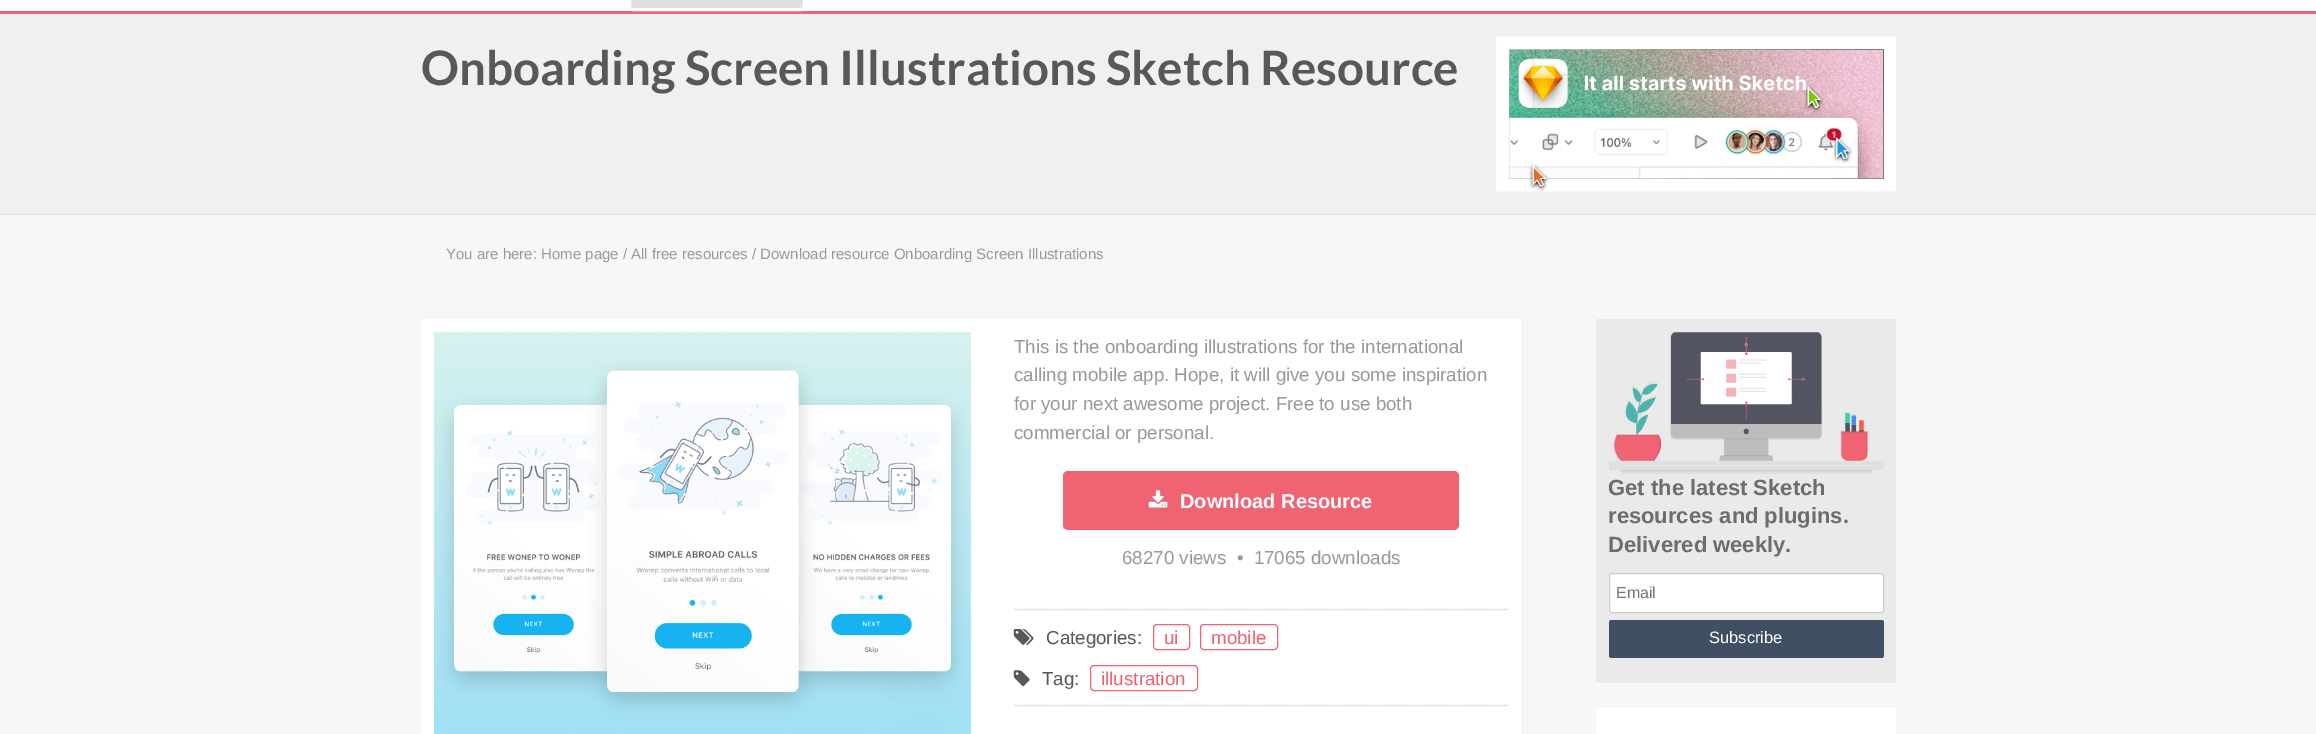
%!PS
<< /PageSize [2316 734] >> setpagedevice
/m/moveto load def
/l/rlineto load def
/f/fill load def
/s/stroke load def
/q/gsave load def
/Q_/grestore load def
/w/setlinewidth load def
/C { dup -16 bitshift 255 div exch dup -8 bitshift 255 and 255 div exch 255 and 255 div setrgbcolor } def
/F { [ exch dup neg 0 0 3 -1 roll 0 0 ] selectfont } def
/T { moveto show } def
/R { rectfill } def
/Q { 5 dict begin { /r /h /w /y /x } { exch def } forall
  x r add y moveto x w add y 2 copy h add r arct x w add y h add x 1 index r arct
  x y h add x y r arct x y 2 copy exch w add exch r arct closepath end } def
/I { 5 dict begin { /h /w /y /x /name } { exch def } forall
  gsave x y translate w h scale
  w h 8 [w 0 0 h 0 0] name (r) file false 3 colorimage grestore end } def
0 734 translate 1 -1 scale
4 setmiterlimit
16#F7F7F7 C
0 0 2316 734 R
16#FFFFFF C
0 0 2316 11 R
16#F06373 C
0 11 2316 3 R
16#DFDFDF C
629.5 -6.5 175 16 3.5 Q q f Q_
16#FFFFFF C
3 w
s
16#F0F0F0 C
0 14 2316 200 R
16#DFDFDF C
0 214 2316 1 R
/Lato-Bold 47.5 F
16#58585B C
(Onboarding Screen Illustrations Sketch Resource) 421 85 T
(1.rgb) 1496 36 400 156 I
/LiberationSans-Regular 15 F
16#999999 C
(You are here: Home page / All free resources / Download resource Onboarding Screen Illustrations) 446 259 T
16#FFFFFF C
421 319 1100 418 2.5 Q f
(2.rgb) 433 331 539 403 I
/LiberationSans-Regular 18.75 F
16#999999 C
(This is the onboarding illustrations for the international) 1014 353 T
(calling mobile app. Hope, it will give you some inspiration) 1014 381 T
(for your next awesome project. Free to use both) 1014 410 T
(commercial or personal.) 1014 439 T
16#F06373 C
1063 471 396 59 5 Q f
(3.rgb) 1148 490 20 18 I
/LiberationSans-Bold 20 F
16#FFFFFF C
(Download Resource) 1180 508 T
/LiberationSans-Regular 18.75 F
16#999999 C
(68270 views  •  17065 downloads) 1122 564 T
16#CCCCCC C
1.2 w
[1.25 1.25] 0 setdash
1014 609.5 m 495 0 l s
(4.rgb) 1013 629 21 16 I
16#58585B C
(Categories:) 1046 644 T
16#F06373 C
1 w
[] 0 setdash
1153.5 624.5 36 25 3.5 Q s
(ui) 1164 644 T
1200.5 624.5 77 25 3.5 Q s
(mobile) 1211 644 T
16#CCCCCC C
1.2 w
[1.25 1.25] 0 setdash
1014 705.5 m 495 0 l s
(5.rgb) 1013 670 17 17 I
16#58585B C
(Tag:) 1042 685 T
16#F06373 C
1 w
[] 0 setdash
1090.5 665.5 107 25 3.5 Q s
(illustration) 1101 685 T
16#EAEAEB C
1596 319 300 364 2.5 Q f
(6.rgb) 1609 332 275 142 I
/LiberationSans-Bold 22 F
16#6E6D6E C
(Get the latest Sketch) 1608 495 T
(resources and plugins.) 1608 523 T
(Delivered weekly.) 1608 552 T
16#FFFFFF C
1609.5 573.5 274 39 2 Q q f Q_
16#CCCCCC C
s
/LiberationSans-Regular 16 F
16#757575 C
(Email) 1616 598 T
16#414F63 C
1609 620 275 38 2.5 Q f
/LiberationSans-Regular 16.5 F
16#FFFFFF C
(Subscribe) 1709 643 T
1596 708 300 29 2.5 Q f
showpage
